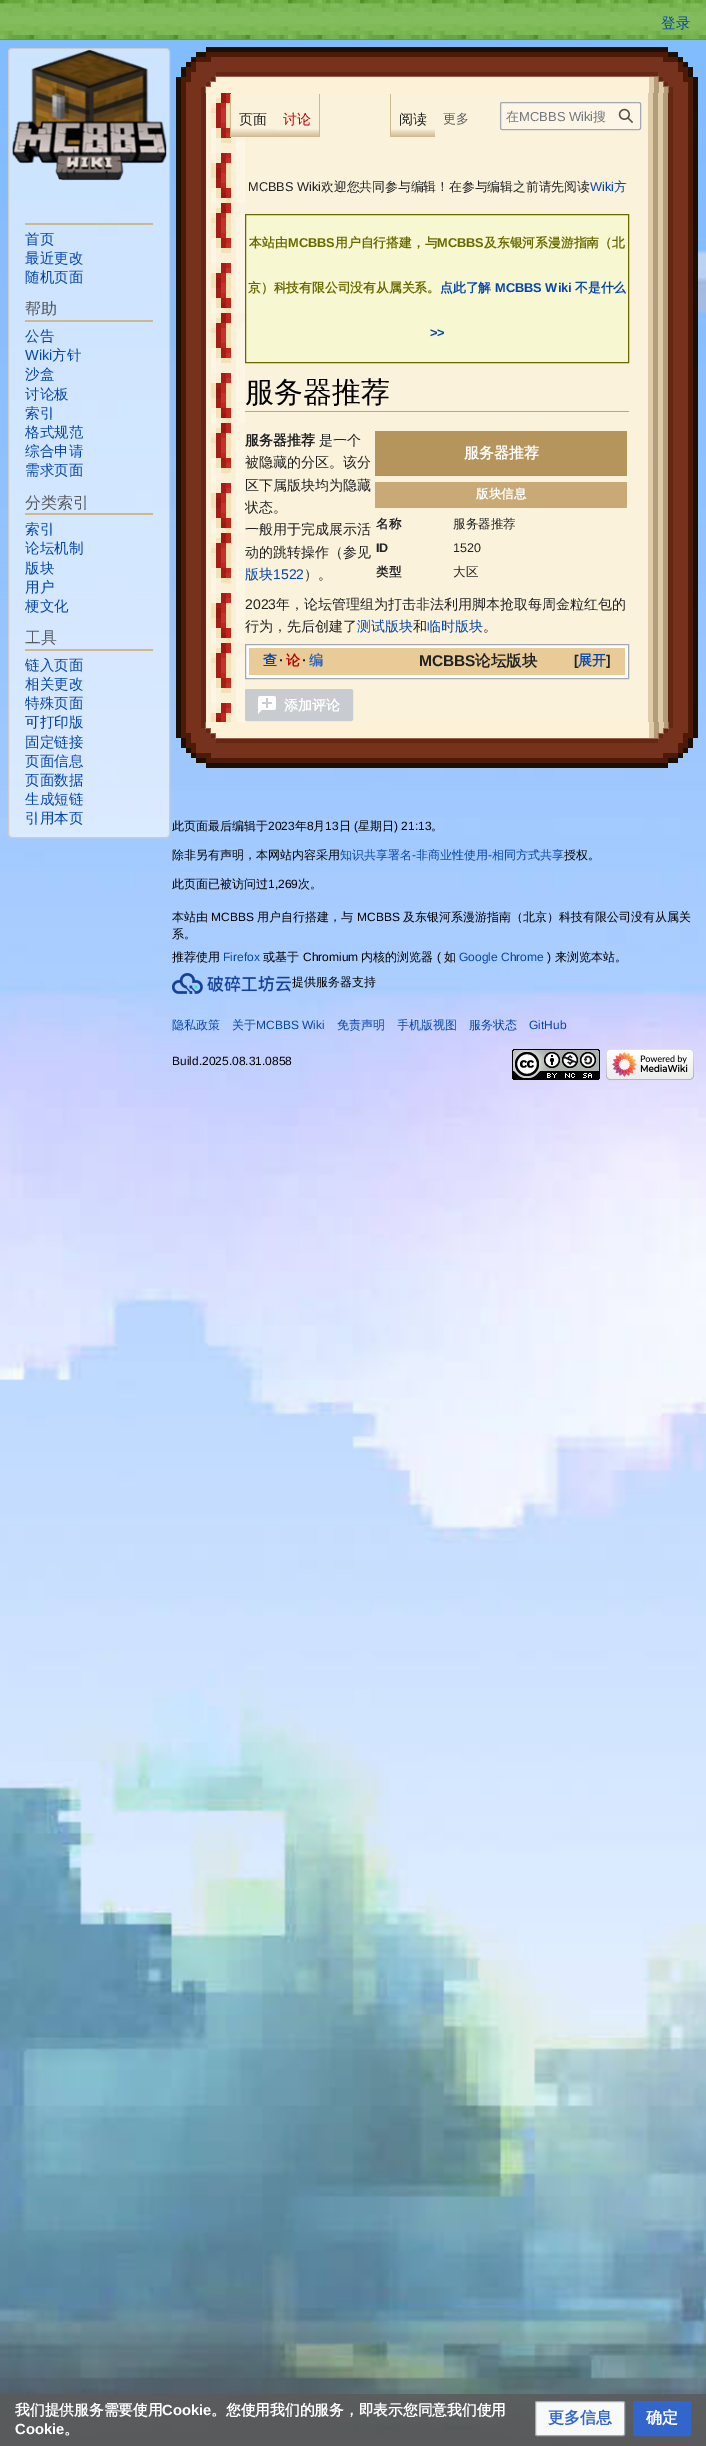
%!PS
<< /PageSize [706 2446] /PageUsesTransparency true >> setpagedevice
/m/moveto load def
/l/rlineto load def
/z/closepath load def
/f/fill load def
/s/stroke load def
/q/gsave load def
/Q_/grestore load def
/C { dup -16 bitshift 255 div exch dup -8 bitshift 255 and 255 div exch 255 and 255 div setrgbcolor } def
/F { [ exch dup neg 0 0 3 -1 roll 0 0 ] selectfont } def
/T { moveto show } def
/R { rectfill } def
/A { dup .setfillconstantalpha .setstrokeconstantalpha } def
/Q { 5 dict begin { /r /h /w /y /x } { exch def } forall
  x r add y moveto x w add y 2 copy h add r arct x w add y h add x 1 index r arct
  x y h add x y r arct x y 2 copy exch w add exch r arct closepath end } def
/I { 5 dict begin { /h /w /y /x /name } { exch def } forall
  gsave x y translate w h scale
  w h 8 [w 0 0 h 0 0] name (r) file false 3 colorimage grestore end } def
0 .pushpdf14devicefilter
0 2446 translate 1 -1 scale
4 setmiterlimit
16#FFFFFF C
0 0 706 2446 R
(1.rgb) 0 40 706 2406 I
(2.rgb) 0 0 706 40 I
/WenQuanYiZenHei-Medium 14.5 F
16#0645AD C
(登录) 661 28 T
16#FBF2DC C
260 93 354 629 R
(5.rgb) 176 93 522 629 I
q 231 94 m 44 0 l 0 43 l -44 0 l z clip newpath
<< /ShadingType 2 /ColorSpace /DeviceRGB /Coords [253 137 253 94] /Extend [true true] /Function << /FunctionType 3 /Domain [0 1] /Functions [<< /FunctionType 2 /Domain [0 1] /C0 [.812 .718 .557] /C1 [.984 .949 .863] /N 1 >> << /FunctionType 2 /Domain [0 1] /C0 [.984 .949 .863] /C1 [.984 .949 .863] /N 1 >>] /Bounds [.2] /Encode [0 1 0 1] >> >> shfill Q_
16#CFB78E C
230 94 1 43 R
/WenQuanYiZenHei-Medium 14 F
16#202122 C
(页面) 239 124 T
q 275 129 m 44 0 l 0 8 l -44 0 l z clip newpath
<< /ShadingType 2 /ColorSpace /DeviceRGB /Coords [297 137 297 94] /Extend [true true] /Function << /FunctionType 3 /Domain [0 1] /Functions [<< /FunctionType 2 /Domain [0 1] /C0 [.812 .718 .557] /C1 [.984 .949 .863] /N 1 >> << /FunctionType 2 /Domain [0 1] /C0 [.984 .949 .863] /C1 [.984 .949 .863] /N 1 >>] /Bounds [.2] /Encode [0 1 0 1] >> >> shfill Q_
16#CFB78E C
319 94 1 43 R
16#BA0000 C
(讨论) 283 124 T
q 391 129 m 44 0 l 0 8 l -44 0 l z clip newpath
<< /ShadingType 2 /ColorSpace /DeviceRGB /Coords [413 137 413 94] /Extend [true true] /Function << /FunctionType 3 /Domain [0 1] /Functions [<< /FunctionType 2 /Domain [0 1] /C0 [.812 .718 .557] /C1 [.984 .949 .863] /N 1 >> << /FunctionType 2 /Domain [0 1] /C0 [.984 .949 .863] /C1 [.984 .949 .863] /N 1 >>] /Bounds [.2] /Encode [0 1 0 1] >> >> shfill Q_
16#CFB78E C
390 94 1 43 R
16#202122 C
(阅读) 399 124 T
/WenQuanYiZenHei-Medium 13 F
16#54595D C
(更多) 443 123 T
16#FDF6E6 C
500.5 102.5 140 27 1.5 Q q f Q_
16#A2A9B1 C
s
16#72777D C
(在) 506 121 T
/LiberationSans-Regular 13 F
(MCBBS Wiki) 519 121 T
/WenQuanYiZenHei-Medium 13 F
(搜) 593 121 T
(3.rgb) 618 108 15 15 I
0.6 A
16#FFFFFF C
8.5 48.5 161 789 3.5 Q f
1 A
16#CCCCCC C
8.5 48.5 161 789 3.5 Q s
(4.rgb) 12 49 155 132 I
16#CFB78E C
25 223 128 2 R
/WenQuanYiZenHei-Medium 14.5 F
16#0645AD C
(首页) 25 244 T
(最近更改) 25 263 T
(随机页面) 25 282 T
/WenQuanYiZenHei-Medium 16 F
16#54595D C
(帮助) 25 314 T
16#CFB78E C
25 320 128 2 R
/WenQuanYiZenHei-Medium 14.5 F
16#0645AD C
(公告) 25 341 T
/LiberationSans-Regular 14.5 F
(Wiki) 25 360 T
/WenQuanYiZenHei-Medium 14.5 F
(方针) 52 360 T
(沙盒) 25 379 T
(讨论板) 25 399 T
(索引) 25 418 T
(格式规范) 25 437 T
(综合申请) 25 456 T
(需求页面) 25 475 T
/WenQuanYiZenHei-Medium 16 F
16#54595D C
(分类索引) 25 508 T
16#CFB78E C
25 513 128 2 R
/WenQuanYiZenHei-Medium 14.5 F
16#0645AD C
(索引) 25 534 T
(论坛机制) 25 553 T
(版块) 25 573 T
(用户) 25 592 T
(梗文化) 25 611 T
/WenQuanYiZenHei-Medium 16 F
16#54595D C
(工具) 25 643 T
16#CFB78E C
25 649 128 2 R
/WenQuanYiZenHei-Medium 14.5 F
16#0645AD C
(链入页面) 25 670 T
(相关更改) 25 689 T
(特殊页面) 25 708 T
(可打印版) 25 727 T
(固定链接) 25 747 T
(页面信息) 25 766 T
(页面数据) 25 785 T
(生成短链) 25 804 T
(引用本页) 25 823 T
(6.rgb) 176 47 522 46 I
/LiberationSans-Regular 12.8 F
16#202122 C
(MCBBS Wiki) 248 191 T
/WenQuanYiZenHei-Medium 12.8 F
(欢迎您共同参与编辑！在参与编辑之前请先阅读) 321 191 T
/LiberationSans-Regular 12.8 F
16#0645AD C
(Wiki) 590 191 T
/WenQuanYiZenHei-Medium 12.8 F
(方) 614 191 T
16#F7F7D1 C
245.5 214.5 m 383 0 l 0 148 l -383 0 l z q f Q_
16#696900 C
s
/WenQuanYiZenHei-Bold 12.8 F
(本站由) 249 247 T
/LiberationSans-Bold 12.8 F
(MCBBS) 288 247 T
/WenQuanYiZenHei-Bold 12.8 F
(用户自行搭建，与) 335 247 T
/LiberationSans-Bold 12.8 F
(MCBBS) 437 247 T
/WenQuanYiZenHei-Bold 12.8 F
(及东银河系漫游指南（北) 484 247 T
(京）科技有限公司没有从属关系。) 248 292 T
16#0645AD C
(点此了解) 440 292 T
/LiberationSans-Bold 12.8 F
(MCBBS Wiki) 495 292 T
/WenQuanYiZenHei-Bold 12.8 F
(不是什么) 575 292 T
/LiberationSans-Bold 12.8 F
(>>) 430 337 T
16#A2A9B1 C
245 411 384 1 R
/WenQuanYiZenHei-Medium 29 F
16#000000 C
(服务器推荐) 245 402 T
/WenQuanYiZenHei-Bold 14 F
16#202122 C
(服务器推荐) 245 445 T
/WenQuanYiZenHei-Medium 14 F
(是一个) 319 445 T
(被隐藏的分区。该分) 245 467 T
(区下属版块均为隐藏) 245 490 T
(状态。) 245 512 T
(一般用于完成展示活) 245 534 T
(动的跳转操作（参见) 245 557 T
16#0645AD C
(版块) 245 579 T
/LiberationSans-Regular 14 F
(1522) 273 579 T
/WenQuanYiZenHei-Medium 14 F
16#202122 C
(）。) 304 579 T
16#B5955C C
375 431 252 45 R
/WenQuanYiZenHei-Bold 15 F
16#FFFFFF C
(服务器推荐) 464 458 T
16#C9AA76 C
375 482 252 26 R
/WenQuanYiZenHei-Bold 12.5 F
16#FFFFFF C
(版块信息) 476 498 T
16#202122 C
(名称) 376 528 T
/WenQuanYiZenHei-Medium 12.5 F
(服务器推荐) 453 528 T
/LiberationSans-Bold 12.5 F
(ID) 376 552 T
/LiberationSans-Regular 12.5 F
(1520) 453 552 T
/WenQuanYiZenHei-Bold 12.5 F
(类型) 376 576 T
/WenQuanYiZenHei-Medium 12.5 F
(大区) 453 576 T
/LiberationSans-Regular 14 F
(2023) 245 609 T
/WenQuanYiZenHei-Medium 14 F
(年，论坛管理组为打击非法利用脚本抢取每周金粒红包的) 276 609 T
(行为，先后创建了) 245 631 T
16#0645AD C
(测试版块) 357 631 T
16#202122 C
(和) 413 631 T
16#0645AD C
(临时版块) 427 631 T
16#202122 C
(。) 483 631 T
16#FDFDFD C
245.5 644.5 m 383 0 l 0 34 l -383 0 l z q f Q_
16#A2A9B1 C
s
16#E9CB97 C
249 648 376 27 R
/WenQuanYiZenHei-Bold 14 F
16#0645AD C
(查) 263 665 T
/LiberationSans-Bold 14 F
16#202122 C
(·) 279 665 T
/WenQuanYiZenHei-Bold 14 F
16#BA0000 C
(论) 286 665 T
/LiberationSans-Bold 14 F
16#202122 C
(·) 302 665 T
/WenQuanYiZenHei-Bold 14 F
16#3366BB C
(编) 309 665 T
/LiberationSans-Bold 15.5 F
16#202122 C
(MCBBS) 419 666 T
/WenQuanYiZenHei-Bold 15.5 F
(论坛版块) 475 666 T
/LiberationSans-Bold 14 F
([) 574 665 T
/WenQuanYiZenHei-Bold 14 F
16#0645AD C
(展开) 578 665 T
/LiberationSans-Bold 14 F
16#202122 C
(]) 606 665 T
16#C8CCD1 C
245.5 689.5 107 31 1.5 Q q f Q_
s
(7.rgb) 258 696 18 18 I
/WenQuanYiZenHei-Bold 14 F
16#FFFFFF C
(添加评论) 284 710 T
(8.rgb) 176 722 522 46 I
/WenQuanYiZenHei-Medium 12 F
16#000000 C
(此页面最后编辑于) 172 830 T
/LiberationSans-Regular 12 F
(2023) 268 830 T
/WenQuanYiZenHei-Medium 12 F
(年) 295 830 T
/LiberationSans-Regular 12 F
(8) 307 830 T
/WenQuanYiZenHei-Medium 12 F
(月) 313 830 T
/LiberationSans-Regular 12 F
(13) 325 830 T
/WenQuanYiZenHei-Medium 12 F
(日) 339 830 T
/LiberationSans-Regular 12 F
(\() 354 830 T
/WenQuanYiZenHei-Medium 12 F
(星期日) 358 830 T
/LiberationSans-Regular 12 F
(\) 21:13) 394 830 T
/WenQuanYiZenHei-Medium 12 F
(。) 431 830 T
(除非另有声明，本网站内容采用) 172 859 T
16#0645AD C
(知识共享署名) 340 859 T
/LiberationSans-Regular 12 F
(-) 412 859 T
/WenQuanYiZenHei-Medium 12 F
(非商业性使用) 416 859 T
/LiberationSans-Regular 12 F
(-) 488 859 T
/WenQuanYiZenHei-Medium 12 F
(相同方式共享) 492 859 T
16#000000 C
(授权。) 564 859 T
(此页面已被访问过) 172 888 T
/LiberationSans-Regular 12 F
(1,269) 268 888 T
/WenQuanYiZenHei-Medium 12 F
(次。) 298 888 T
(本站由) 172 921 T
/LiberationSans-Regular 12 F
(MCBBS) 211 921 T
/WenQuanYiZenHei-Medium 12 F
(用户自行搭建，与) 257 921 T
/LiberationSans-Regular 12 F
(MCBBS) 357 921 T
/WenQuanYiZenHei-Medium 12 F
(及东银河系漫游指南（北京）科技有限公司没有从属关) 403 921 T
(系。) 172 938 T
(推荐使用) 172 961 T
/LiberationSans-Regular 12 F
16#0645AD C
(Firefox) 223 961 T
/WenQuanYiZenHei-Medium 12 F
16#000000 C
(或基于) 263 961 T
/LiberationSans-Regular 12 F
(Chromium) 303 961 T
/WenQuanYiZenHei-Medium 12 F
(内核的浏览器) 361 961 T
/LiberationSans-Regular 12 F
(\() 437 961 T
/WenQuanYiZenHei-Medium 12 F
(如) 444 961 T
/LiberationSans-Regular 12 F
16#0645AD C
(Google Chrome) 459 961 T
16#000000 C
(\)) 547 961 T
/WenQuanYiZenHei-Medium 12 F
(来浏览本站。) 555 961 T
(9.rgb) 172 973 119 21 I
(提供服务器支持) 292 986 T
16#0645AD C
(隐私政策) 172 1029 T
(关于) 232 1029 T
/LiberationSans-Regular 12 F
(MCBBS Wiki) 256 1029 T
/WenQuanYiZenHei-Medium 12 F
(免责声明) 337 1029 T
(手机版视图) 397 1029 T
(服务状态) 469 1029 T
/LiberationSans-Regular 12 F
(GitHub) 529 1029 T
16#000000 C
(Build.2025.08.31.0858) 172 1065 T
(10.rgb) 512 1049 88 31 I
(11.rgb) 606 1049 88 31 I
0.85 A
16#5A5A5A C
0 2394 706 52 R
/WenQuanYiZenHei-Bold 14.75 F
1 A
16#FFFFFF C
(我们提供服务需要使用) 15 2415 T
/LiberationSans-Bold 14.75 F
(Cookie) 162 2415 T
/WenQuanYiZenHei-Bold 14.75 F
(。您使用我们的服务，即表示您同意我们使用) 211 2415 T
/LiberationSans-Bold 14.75 F
(Cookie) 15 2434 T
/WenQuanYiZenHei-Bold 14.75 F
(。) 64 2434 T
16#F8F9FA C
535.5 2401.5 89 34 1.5 Q q f Q_
16#A2A9B1 C
s
/WenQuanYiZenHei-Bold 16 F
16#3366CC C
(更多信息) 548 2423 T
633.5 2401.5 57 34 1.5 Q q f Q_
s
16#FFFFFF C
(确定) 646 2423 T
.poppdf14devicefilter showpage
